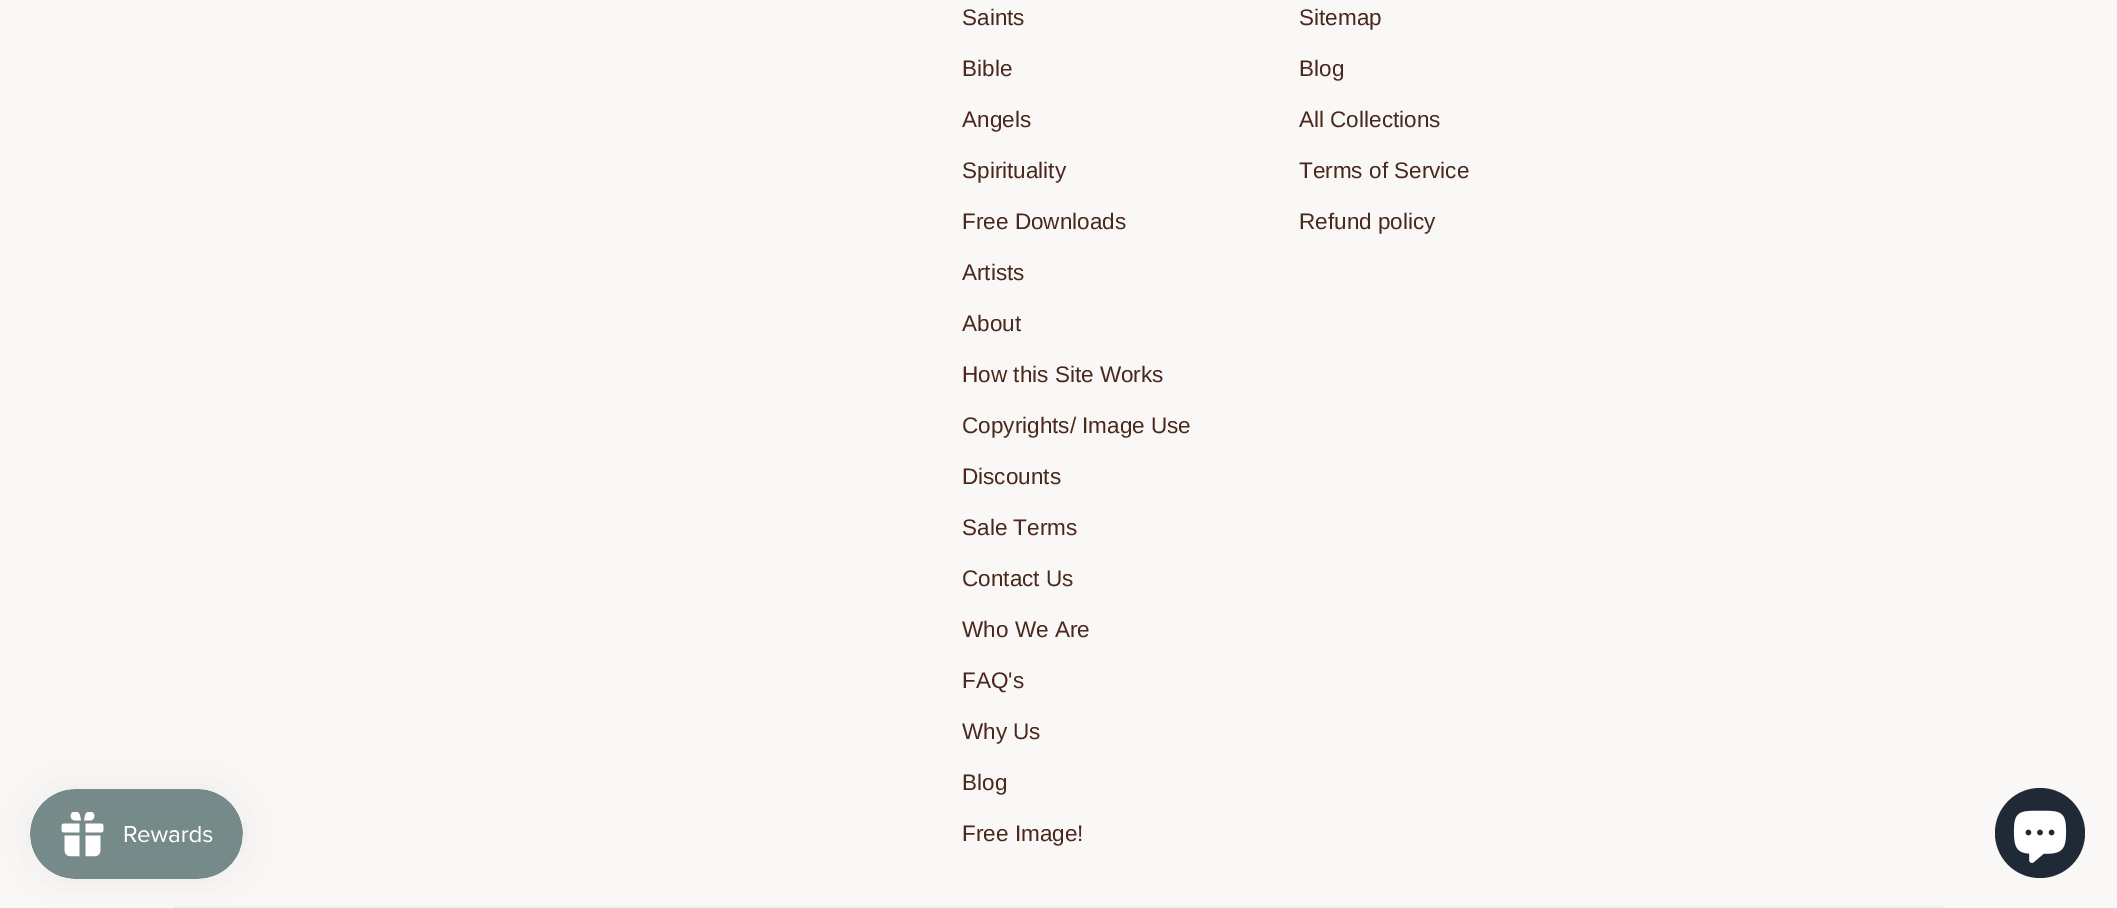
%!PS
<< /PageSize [2117 908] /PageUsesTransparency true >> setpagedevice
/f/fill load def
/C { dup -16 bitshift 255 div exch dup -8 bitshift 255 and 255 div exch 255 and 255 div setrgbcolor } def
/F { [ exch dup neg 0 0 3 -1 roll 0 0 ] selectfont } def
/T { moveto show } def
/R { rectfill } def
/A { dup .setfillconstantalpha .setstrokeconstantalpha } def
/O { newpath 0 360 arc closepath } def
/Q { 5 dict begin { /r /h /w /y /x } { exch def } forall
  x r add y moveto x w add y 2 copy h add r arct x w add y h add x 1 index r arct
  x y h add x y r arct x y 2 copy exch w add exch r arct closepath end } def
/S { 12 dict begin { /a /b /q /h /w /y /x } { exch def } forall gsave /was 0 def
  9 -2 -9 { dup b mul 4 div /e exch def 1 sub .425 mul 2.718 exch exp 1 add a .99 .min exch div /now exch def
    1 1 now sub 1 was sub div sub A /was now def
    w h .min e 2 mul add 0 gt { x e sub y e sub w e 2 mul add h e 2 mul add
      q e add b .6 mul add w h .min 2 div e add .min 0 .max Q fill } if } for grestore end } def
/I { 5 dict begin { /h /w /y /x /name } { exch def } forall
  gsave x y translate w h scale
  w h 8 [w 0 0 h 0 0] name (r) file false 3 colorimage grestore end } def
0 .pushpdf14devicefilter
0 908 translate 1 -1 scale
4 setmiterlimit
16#FAF7F7 C
0 0 2117 908 R
16#EEEEEE C
174 906 1770 2 R
16#000000 C
30 789 213 90 45 19 .05 S
(1.rgb) 30 789 213 90 I
/LiberationSans-Regular 22.5 F
16#49281D C
(Saints) 962 25 T
(Bible) 962 76 T
(Angels) 962 127 T
(Spirituality) 962 178 T
(Free Downloads) 962 229 T
(Artists) 962 280 T
(About) 962 331 T
(How this Site Works) 962 382 T
(Copyrights/ Image Use) 962 433 T
(Discounts) 962 484 T
(Sale Terms) 962 535 T
(Contact Us) 962 586 T
(Who We Are) 962 637 T
(FAQ's) 962 688 T
(Why Us) 962 739 T
(Blog) 962 790 T
(Free Image!) 962 841 T
(Sitemap) 1299 25 T
(Blog) 1299 76 T
(All Collections) 1299 127 T
(Terms of Service) 1299 178 T
(Refund policy) 1299 229 T
16#202A36 C
2040 833 45 O f
(2.rgb) 2013 810 54 53 I
.poppdf14devicefilter showpage
